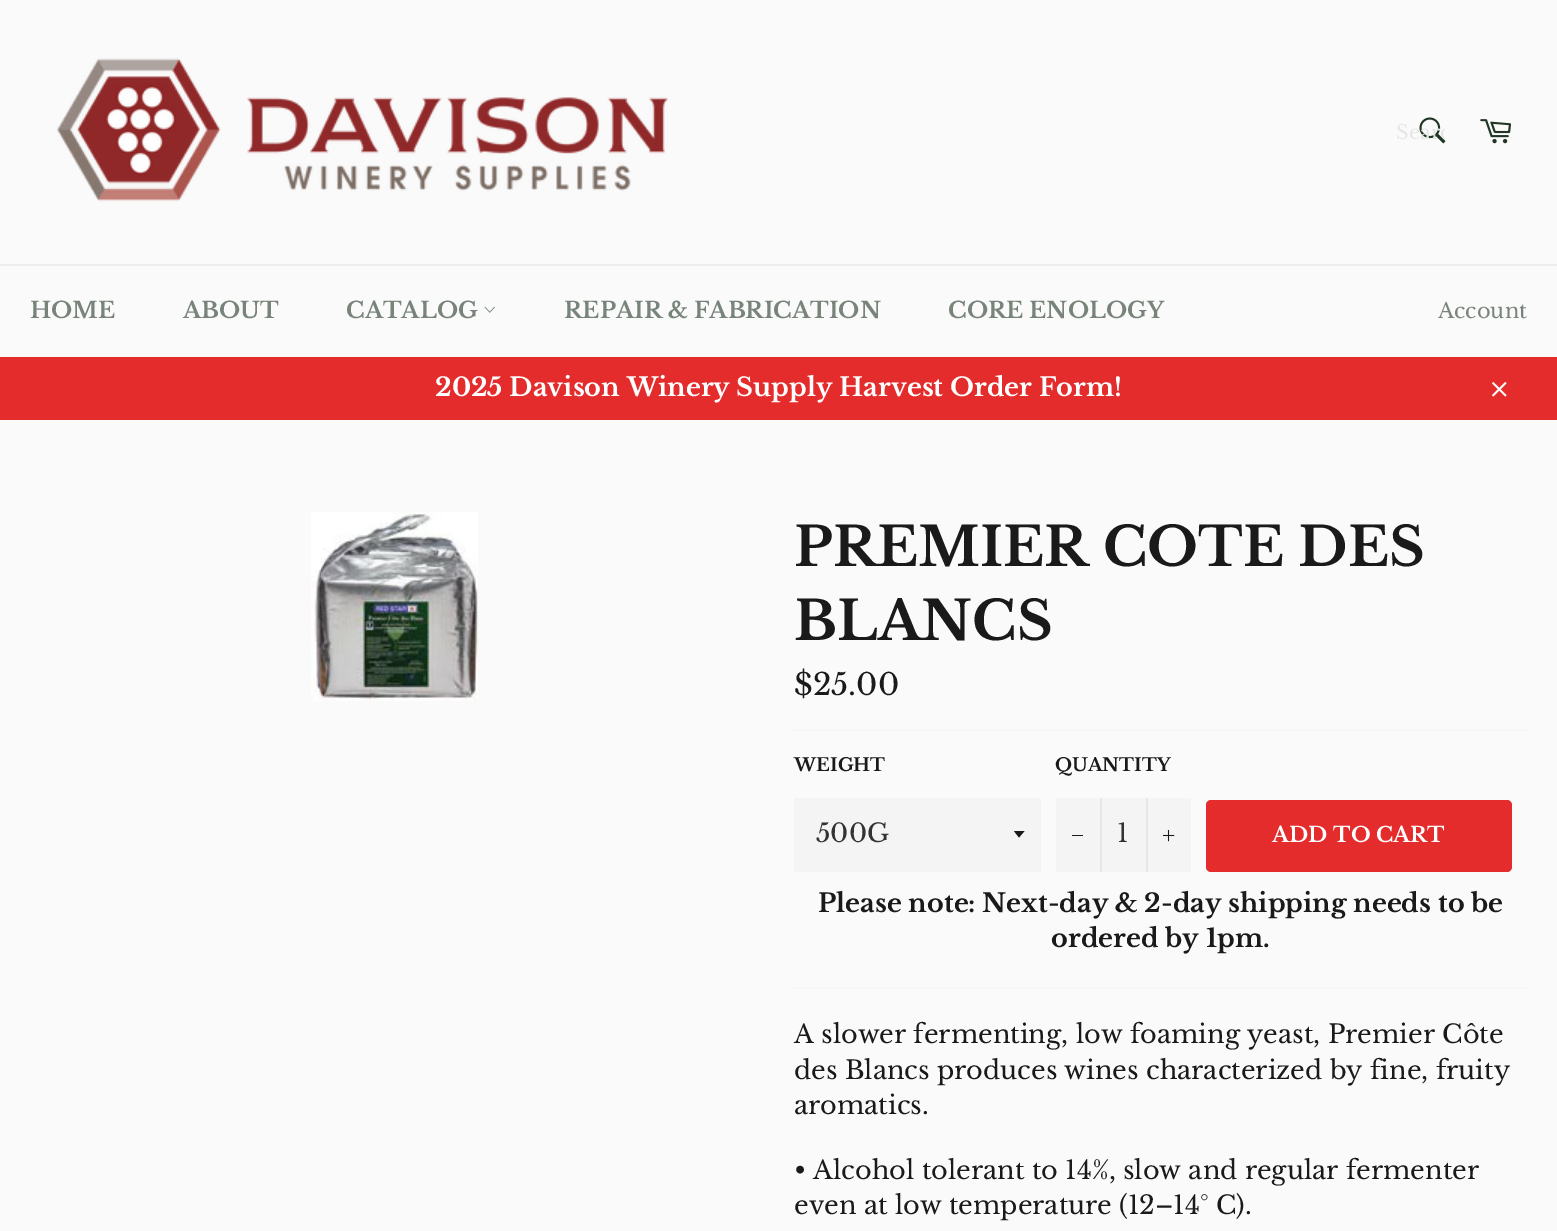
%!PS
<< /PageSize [1557 1231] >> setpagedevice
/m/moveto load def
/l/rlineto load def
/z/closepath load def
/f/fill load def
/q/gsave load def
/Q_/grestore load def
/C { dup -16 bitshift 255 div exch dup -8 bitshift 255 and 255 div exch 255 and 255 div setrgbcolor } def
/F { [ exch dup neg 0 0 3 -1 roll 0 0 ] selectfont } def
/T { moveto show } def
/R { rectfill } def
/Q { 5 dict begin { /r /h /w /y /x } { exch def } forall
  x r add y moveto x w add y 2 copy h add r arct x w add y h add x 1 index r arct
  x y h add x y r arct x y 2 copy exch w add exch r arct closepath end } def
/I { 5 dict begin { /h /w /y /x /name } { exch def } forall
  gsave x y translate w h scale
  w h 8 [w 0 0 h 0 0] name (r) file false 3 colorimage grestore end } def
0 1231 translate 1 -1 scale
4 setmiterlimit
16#FAFAFA C
0 0 1557 1231 R
(1.rgb) 56 58 612 144 I
(2.rgb) 1419 117 27 27 I
q
1397 120 48 26 rectclip
/LibreBaskerville-Regular 19.5 F
16#E5E7E5 C
(Searc) 1396 139 T
Q_
(3.rgb) 1480 119 31 25 I
16#EDEDED C
0 264 1557 2 R
/LibreBaskerville-Bold 22.5 F
16#78847A C
(HOME) 30 318 T
(ABOUT) 183 318 T
(CATALOG) 346 318 T
(4.rgb) 484 306 11 7 I
(REPAIR & FABRICATION) 564 318 T
(CORE ENOLOGY) 948 318 T
/LibreBaskerville-Regular 21 F
(Account) 1438 318 T
16#E32C2B C
0 357 1557 63 R
/LibreBaskerville-Bold 25.5 F
16#FFFFFF C
(2025 Davison Winery Supply Harvest Order Form!) 435 396 T
(5.rgb) 1491 381 16 16 I
(6.rgb) 311 512 167 189 I
/LibreBaskerville-Bold 54 F
16#1A1A1A C
(PREMIER COTE DES) 794 566 T
(BLANCS) 794 640 T
/LibreBaskerville-Regular 30 F
($25.00) 794 695 T
16#F7F7F7 C
794 729 733 2 R
/LibreBaskerville-Bold 18 F
16#1A1A1A C
(WEIGHT) 794 771 T
16#F4F4F4 C
794 798 247 74 R
16#1A1A1A C
1014 831 m 5 6.5 l 5.5 -6.5 l z f
/LibreBaskerville-Regular 25.5 F
16#333333 C
(500G) 816 842 T
/LibreBaskerville-Bold 18 F
16#1A1A1A C
(QUANTITY) 1055 771 T
16#F4F4F4 C
1056 798 135 74 R
16#E7E7E7 C
1100 798 2 74 R
16#1A1A1A C
1072 835 11 1 R
/LibreBaskerville-Regular 25.5 F
16#333333 C
(1) 1117 842 T
16#E7E7E7 C
1146 798 2 74 R
(7.rgb) 1163 830 12 12 I
16#E32C2B C
1206 800 306 72 5 Q f
/LibreBaskerville-Bold 21 F
16#FFFFFF C
(ADD TO CART) 1272 842 T
/LibreBaskerville-Bold 25.5 F
16#1A1A1A C
(Please note: Next-day & 2-day shipping needs to be) 818 912 T
(ordered by 1pm.) 1051 947 T
16#F7F7F7 C
794 987 733 2 R
/LibreBaskerville-Regular 25.5 F
16#1A1A1A C
(A slower fermenting, low foaming yeast, Premier Côte) 794 1043 T
(des Blancs produces wines characterized by fine, fruity) 794 1079 T
(aromatics.) 794 1114 T
(• Alcohol tolerant to 14%, slow and regular fermenter) 794 1179 T
(even at low temperature \(12–14° C\).) 794 1214 T
showpage
